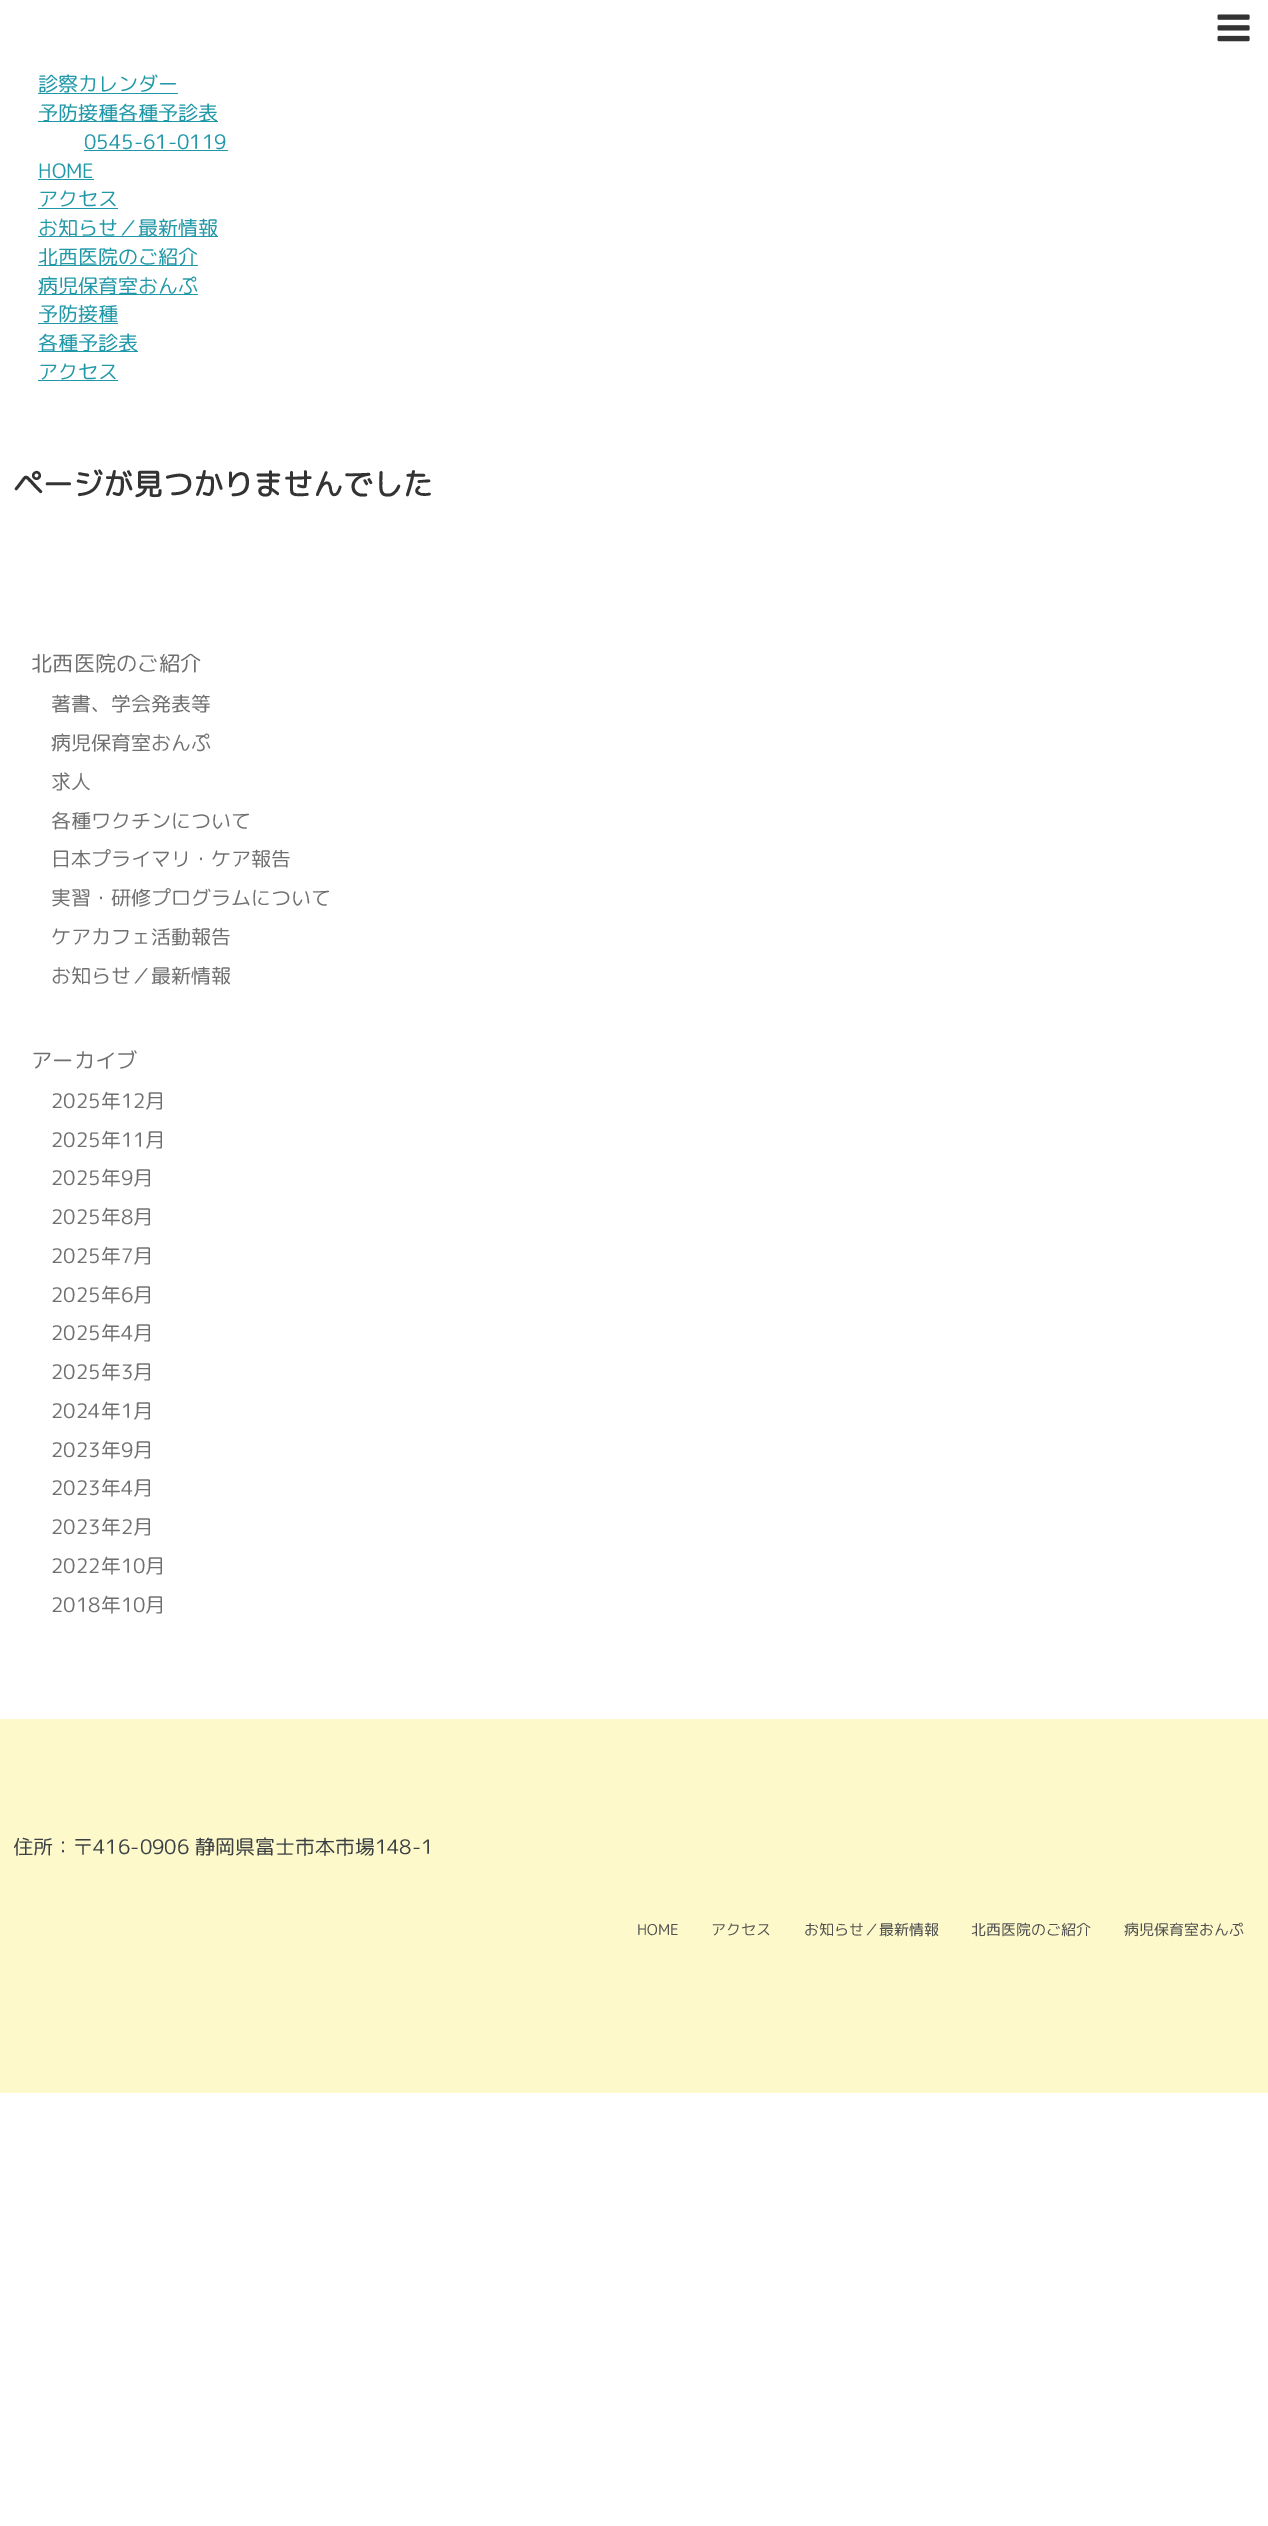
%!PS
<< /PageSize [1268 2526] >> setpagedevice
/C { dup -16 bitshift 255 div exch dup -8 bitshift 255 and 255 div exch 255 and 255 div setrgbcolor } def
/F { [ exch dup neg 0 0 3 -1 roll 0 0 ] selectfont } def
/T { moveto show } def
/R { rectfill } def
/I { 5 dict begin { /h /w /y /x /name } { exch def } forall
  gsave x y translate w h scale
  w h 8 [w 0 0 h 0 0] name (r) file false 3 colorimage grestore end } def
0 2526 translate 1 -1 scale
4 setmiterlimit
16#FFFFFF C
0 0 1268 2526 R
(1.rgb) 1217 14 33 28 I
/RoundedMplus1c-Regular 20 F
16#2098A8 C
(診察カレンダー) 38 91 T
38 93 140 1 R
38 121 180 1 R
(予防接種各種予診表) 38 120 T
(0545-61-0119) 84 149 T
84 150 144 1 R
(HOME) 38 178 T
38 179 56 1 R
(アクセス) 38 206 T
38 208 80 1 R
38 236 180 1 R
(お知らせ／最新情報) 38 235 T
38 265 160 1 R
(北西医院のご紹介) 38 264 T
38 294 160 1 R
(病児保育室おんぷ) 38 293 T
(予防接種) 38 321 T
38 323 80 1 R
38 351 100 1 R
(各種予診表) 38 350 T
(アクセス) 38 379 T
38 380 80 1 R
/RoundedMplus1c-Bold 30 F
16#333333 C
(ページが見つかりませんでした) 13 495 T
/RoundedMplus1c-Regular 21.25 F
16#707070 C
(北⻄医院のご紹介) 31 671 T
/RoundedMplus1c-Regular 20 F
(著書、学会発表等) 51 711 T
(病児保育室おんぷ) 51 750 T
(求人) 51 789 T
(各種ワクチンについて) 51 828 T
(日本プライマリ・ケア報告) 51 866 T
(実習・研修プログラムについて) 51 905 T
(ケアカフェ活動報告) 51 944 T
(お知らせ／最新情報) 51 983 T
/RoundedMplus1c-Regular 21.25 F
(アーカイブ) 31 1068 T
/RoundedMplus1c-Regular 20 F
(2025年12月) 51 1108 T
(2025年11月) 51 1147 T
(2025年9月) 51 1185 T
(2025年8月) 51 1224 T
(2025年7月) 51 1263 T
(2025年6月) 51 1302 T
(2025年4月) 51 1340 T
(2025年3月) 51 1379 T
(2024年1月) 51 1418 T
(2023年9月) 51 1457 T
(2023年4月) 51 1495 T
(2023年2月) 51 1534 T
(2022年10月) 51 1573 T
(2018年10月) 51 1612 T
16#FDF9CB C
0 1719 1268 374 R
16#3B4043 C
(住所：〒416-0906 静岡県富士市本市場148-1) 13 1854 T
/RoundedMplus1c-Regular 15 F
16#505050 C
(HOME) 637 1935 T
(アクセス) 711 1935 T
(お知らせ／最新情報) 804 1935 T
(北西医院のご紹介) 971 1935 T
(病児保育室おんぷ) 1124 1935 T
showpage
